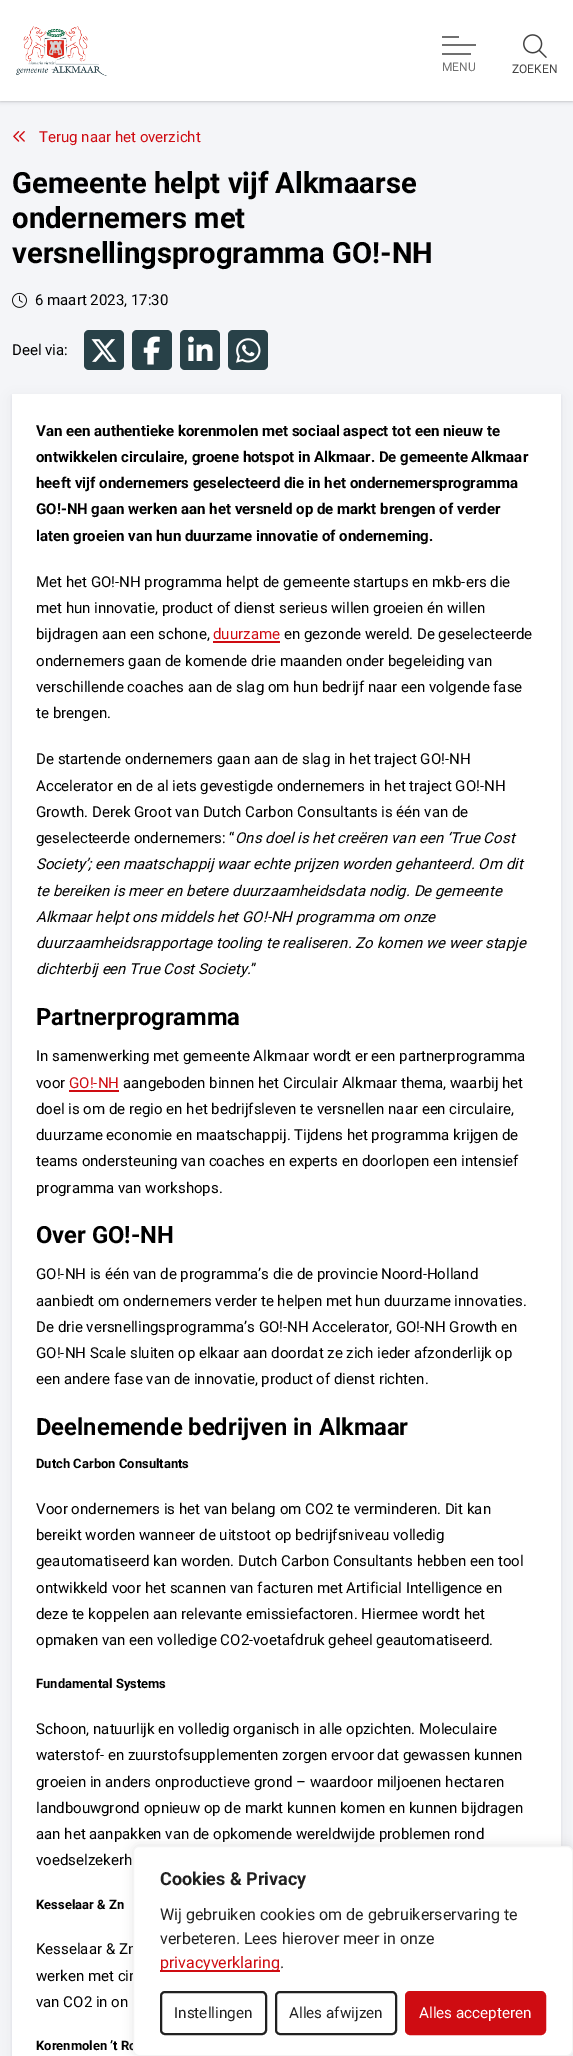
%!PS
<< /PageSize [573 2056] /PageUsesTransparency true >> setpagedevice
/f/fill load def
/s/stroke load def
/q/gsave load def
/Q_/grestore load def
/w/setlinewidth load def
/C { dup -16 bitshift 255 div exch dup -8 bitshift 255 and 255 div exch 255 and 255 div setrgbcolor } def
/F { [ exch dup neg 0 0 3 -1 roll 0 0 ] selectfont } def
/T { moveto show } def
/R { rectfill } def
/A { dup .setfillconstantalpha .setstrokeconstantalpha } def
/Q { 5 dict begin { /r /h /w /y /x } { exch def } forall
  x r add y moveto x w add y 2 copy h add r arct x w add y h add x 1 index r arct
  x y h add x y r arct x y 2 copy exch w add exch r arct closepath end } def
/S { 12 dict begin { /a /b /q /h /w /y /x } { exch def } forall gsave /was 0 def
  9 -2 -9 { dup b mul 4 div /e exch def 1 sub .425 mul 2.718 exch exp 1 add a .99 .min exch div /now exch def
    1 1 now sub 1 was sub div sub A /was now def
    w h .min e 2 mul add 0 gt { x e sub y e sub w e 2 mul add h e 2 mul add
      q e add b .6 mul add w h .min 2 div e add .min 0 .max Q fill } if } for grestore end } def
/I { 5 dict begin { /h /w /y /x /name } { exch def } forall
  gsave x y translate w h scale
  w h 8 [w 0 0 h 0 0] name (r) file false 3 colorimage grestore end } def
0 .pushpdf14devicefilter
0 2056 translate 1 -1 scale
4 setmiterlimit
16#F4F5F8 C
0 0 573 2056 R
16#282C35 C
0 1 573 101 0 .5 .1 S
0 2 573 101 0 1.5 .08 S
16#FFFFFF C
0 0 573 101 R
(1.rgb) 16 26 91 50 I
16#707070 C
442 36 17 2 R
442 44 34 2 R
442 53 29 2 R
/Roboto-Regular 12 F
(MENU) 442 71 T
(2.rgb) 523 34 24 24 I
16#424242 C
(ZOEKEN) 512 73 T
(3.rgb) 13 131 12 11 I
/Roboto-Regular 15 F
16#CF0C12 C
(Terug naar het overzicht) 39 142 T
/Roboto-Bold 29.25 F
16#000000 C
(Gemeente helpt vijf Alkmaarse) 12 193 T
(ondernemers met) 12 228 T
(versnellingsprogramma GO!-NH) 12 263 T
(4.rgb) 12 292 15 16 I
/Roboto-Regular 15 F
(6 maart 2023, 17:30) 35 305 T
(Deel via:) 12 355 T
16#284148 C
84 330 40 40 5 Q f
(5.rgb) 91 339 26 23 I
132 330 40 40 5 Q f
(6.rgb) 143 336 17 29 I
180 330 40 40 5 Q f
(7.rgb) 188 336 25 25 I
228 330 40 40 5 Q f
(8.rgb) 236 338 25 25 I
16#282C35 C
12 396 549 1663 0 1 .08 S
12 398 549 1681 0 7.5 .06 S
16#FFFFFF C
12 394 549 1662 R
/Roboto-Bold 15 F
16#000000 C
(Van een authentieke korenmolen met sociaal aspect tot een nieuw te) 36 436 T
(ontwikkelen circulaire, groene hotspot in Alkmaar. De gemeente Alkmaar) 36 462 T
(heeft vijf ondernemers geselecteerd die in het ondernemersprogramma) 36 488 T
(GO!-NH gaan werken aan het versneld op de markt brengen of verder) 36 514 T
(laten groeien van hun duurzame innovatie of onderneming.) 36 541 T
/Roboto-Regular 15 F
(Met het GO!-NH programma helpt de gemeente startups en mkb-ers die) 36 587 T
(met hun innovatie, product of dienst serieus willen groeien én willen) 36 613 T
(bijdragen aan een schone,) 36 639 T
16#CF0C12 C
(duurzame) 213 639 T
213 641 67 2 R
16#000000 C
(en gezonde wereld. De geselecteerde) 284 639 T
(ondernemers gaan de komende drie maanden onder begeleiding van) 36 666 T
(verschillende coaches aan de slag om hun bedrijf naar een volgende fase) 36 692 T
(te brengen.) 36 718 T
(De startende ondernemers gaan aan de slag in het traject GO!-NH) 36 764 T
(Accelerator en de al iets gevestigde ondernemers in het traject GO!-NH) 36 791 T
(Growth. Derek Groot van Dutch Carbon Consultants is één van de) 36 817 T
(geselecteerde ondernemers: “) 36 843 T
/Roboto-Italic 15 F
(Ons doel is het creëren van een ‘True Cost) 235 843 T
(Society’; een maatschappij waar echte prijzen worden gehanteerd. Om dit) 36 869 T
(te bereiken is meer en betere duurzaamheidsdata nodig. De gemeente) 36 896 T
(Alkmaar helpt ons middels het GO!-NH programma om onze) 36 922 T
(duurzaamheidsrapportage tooling te realiseren. Zo komen we weer stapje) 36 948 T
(dichterbij een True Cost Society.) 36 974 T
/Roboto-Regular 15 F
(”) 251 974 T
/Roboto-Bold 23.75 F
(Partnerprogramma) 36 1025 T
/Roboto-Regular 15 F
(In samenwerking met gemeente Alkmaar wordt er een partnerprogramma) 36 1061 T
(voor) 36 1088 T
16#CF0C12 C
(GO!-NH) 69 1088 T
69 1090 50 2 R
16#000000 C
(aangeboden binnen het Circulair Alkmaar thema, waarbij het) 123 1088 T
(doel is om de regio en het bedrijfsleven te versnellen naar een circulaire,) 36 1114 T
(duurzame economie en maatschappij. Tijdens het programma krijgen de) 36 1140 T
(teams ondersteuning van coaches en experts en doorlopen een intensief) 36 1166 T
(programma van workshops.) 36 1193 T
/Roboto-Bold 23.75 F
(Over GO!-NH) 36 1243 T
/Roboto-Regular 15 F
(GO!-NH is één van de programma’s die de provincie Noord-Holland) 36 1279 T
(aanbiedt om ondernemers verder te helpen met hun duurzame innovaties.) 36 1306 T
(De drie versnellingsprogramma’s GO!-NH Accelerator, GO!-NH Growth en) 36 1332 T
(GO!-NH Scale sluiten op elkaar aan doordat ze zich ieder afzonderlijk op) 36 1358 T
(een andere fase van de innovatie, product of dienst richten.) 36 1384 T
/Roboto-Bold 23.75 F
(Deelnemende bedrijven in Alkmaar) 36 1435 T
/Roboto-Bold 13 F
(Dutch Carbon Consultants) 36 1468 T
/Roboto-Regular 15 F
(Voor ondernemers is het van belang om CO2 te verminderen. Dit kan) 36 1514 T
(bereikt worden wanneer de uitstoot op bedrijfsniveau volledig) 36 1540 T
(geautomatiseerd kan worden. Dutch Carbon Consultants hebben een tool) 36 1566 T
(ontwikkeld voor het scannen van facturen met Artificial Intelligence en) 36 1593 T
(deze te koppelen aan relevante emissiefactoren. Hiermee wordt het) 36 1619 T
(opmaken van een volledige CO2-voetafdruk geheel geautomatiseerd.) 36 1645 T
/Roboto-Bold 13 F
(Fundamental Systems) 36 1688 T
/Roboto-Regular 15 F
(Schoon, natuurlijk en volledig organisch in alle opzichten. Moleculaire) 36 1734 T
(waterstof- en zuurstofsupplementen zorgen ervoor dat gewassen kunnen) 36 1760 T
(groeien in anders onproductieve grond – waardoor miljoenen hectaren) 36 1787 T
(landbouwgrond opnieuw op de markt kunnen komen en kunnen bijdragen) 36 1813 T
(aan het aanpakken van de opkomende wereldwijde problemen rond) 36 1839 T
(voedselzekerh) 36 1865 T
/Roboto-Bold 13 F
(Kesselaar & Zn) 36 1909 T
/Roboto-Regular 15 F
(Kesselaar & Zn) 36 1954 T
(werken met cir) 36 1981 T
(van CO2 in on) 36 2007 T
/Roboto-Bold 13 F
(Korenmolen ’t Ro) 36 2050 T
16#ACABAB C
133 1845 440 210 6 5 .3 S
16#FFFFFF C
133.5 1846.5 439 209 5.5 Q q f Q_
16#F4F4F4 C
s
/Roboto-Bold 18 F
16#212121 C
(Cookies & Privacy) 160 1885 T
/Roboto-Regular 16 F
(Wij gebruiken cookies om de gebruikerservaring te) 160 1920 T
(verbeteren. Lees hierover meer in onze) 160 1944 T
16#CF0C12 C
160 1970 120 2 R
(privacyverklaring) 160 1968 T
16#212121 C
(.) 280 1968 T
2 w
161 1992 105 42 4 Q s
/Roboto-Regular 15.25 F
(Instellingen) 174 2018 T
276 1992 120 42 4 Q s
(Alles afwijzen) 289 2018 T
16#CF0C12 C
406 1992 139 42 4 Q q f Q_
s
16#FFFFFF C
(Alles accepteren) 419 2018 T
.poppdf14devicefilter showpage
